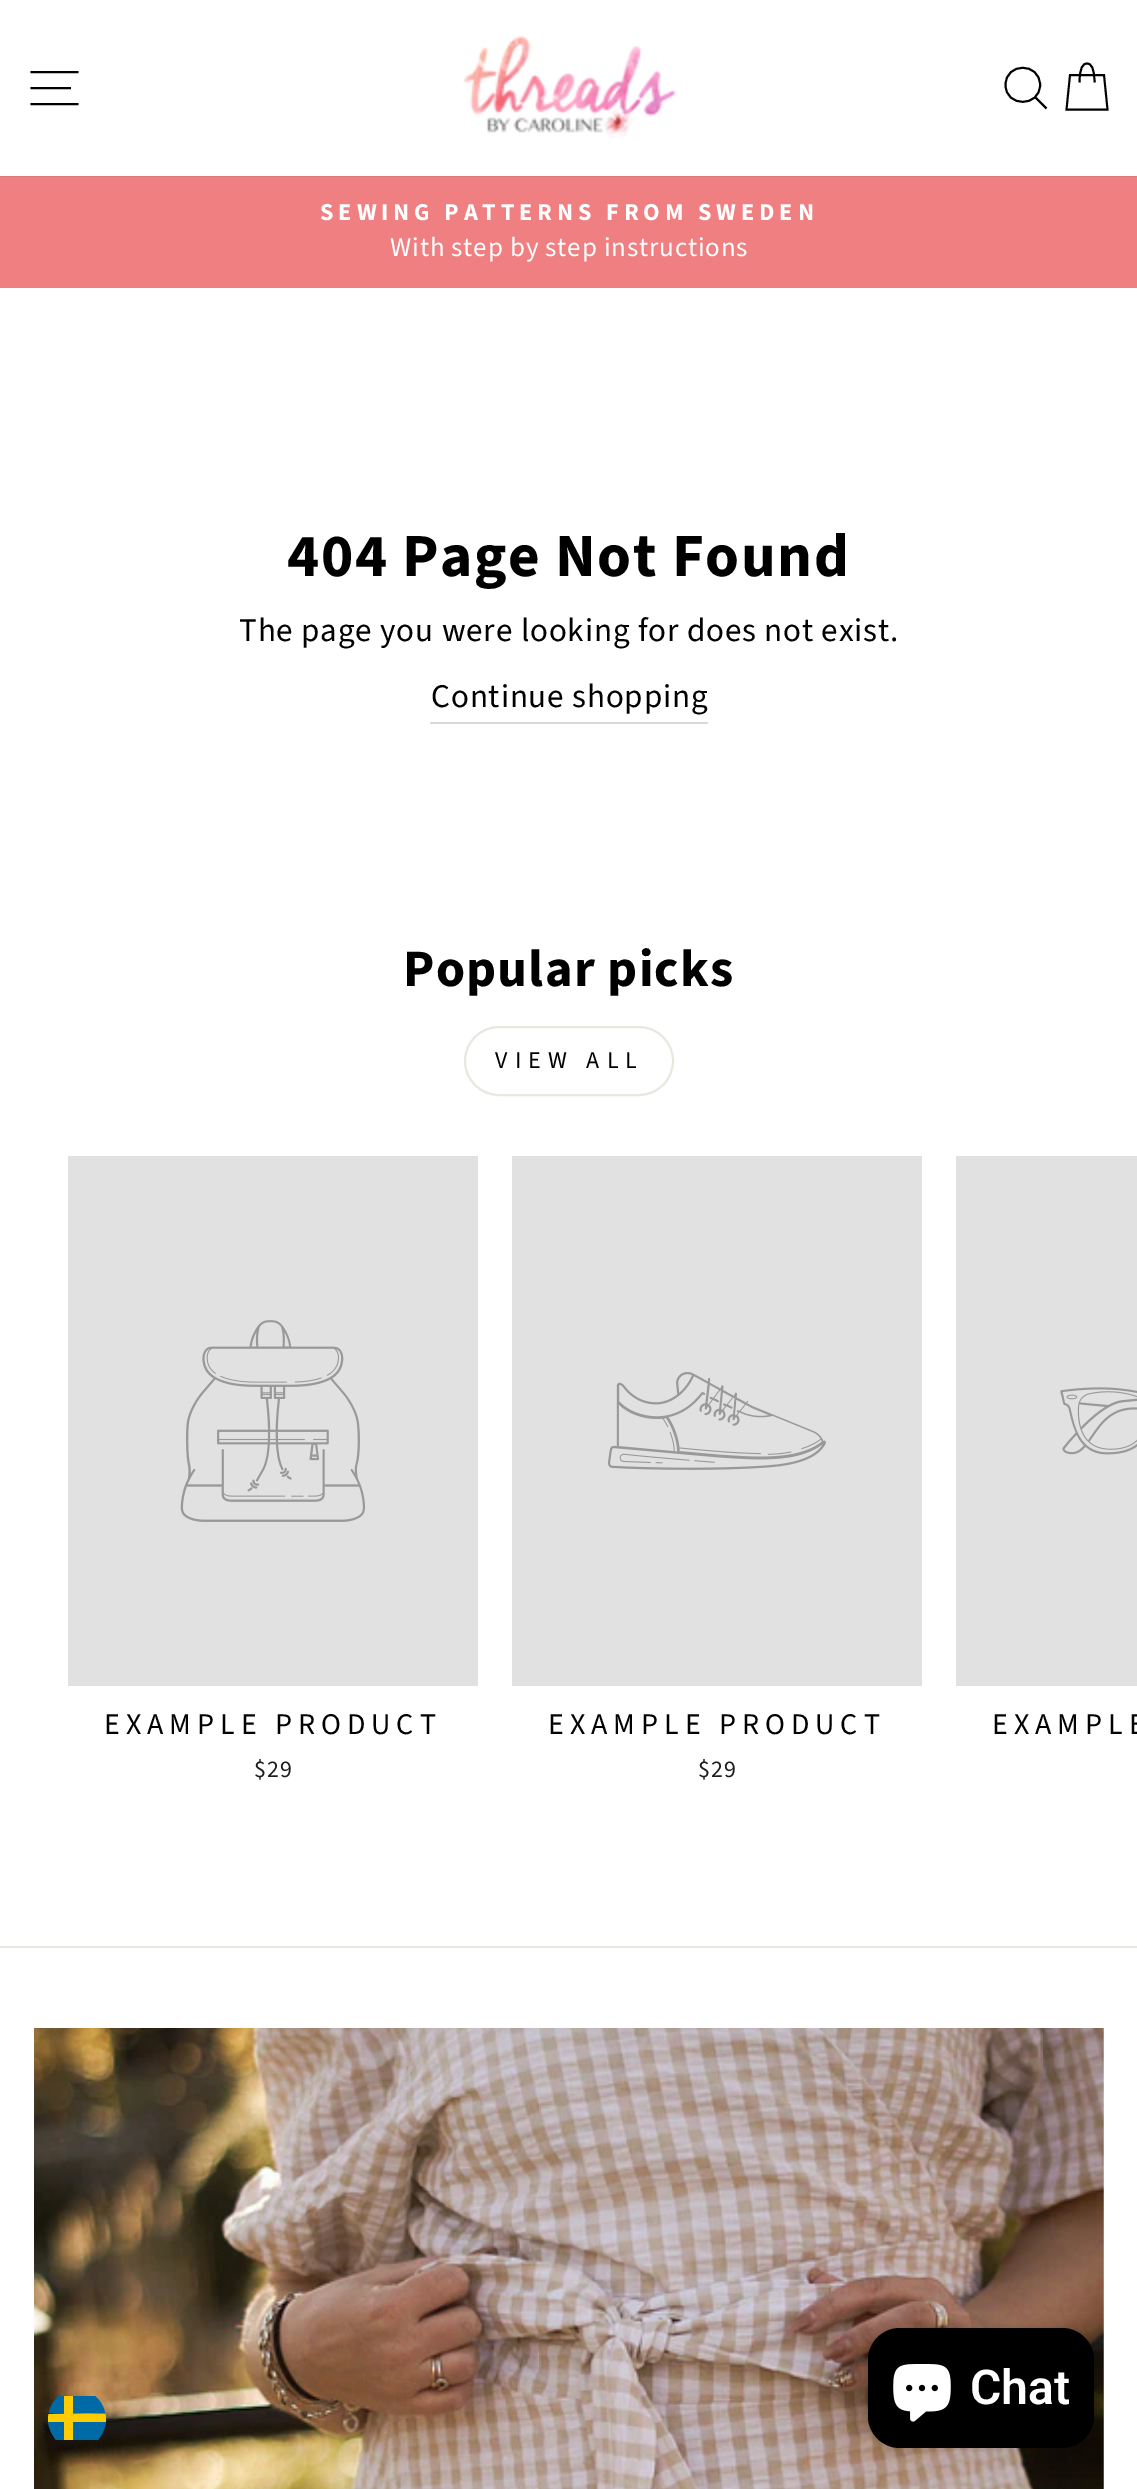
%!PS
<< /PageSize [1137 2489] /PageUsesTransparency true >> setpagedevice
/m/moveto load def
/l/rlineto load def
/c/rcurveto load def
/z/closepath load def
/f/fill load def
/s/stroke load def
/q/gsave load def
/Q_/grestore load def
/w/setlinewidth load def
/C { dup -16 bitshift 255 div exch dup -8 bitshift 255 and 255 div exch 255 and 255 div setrgbcolor } def
/F { [ exch dup neg 0 0 3 -1 roll 0 0 ] selectfont } def
/T { moveto show } def
/R { rectfill } def
/A { dup .setfillconstantalpha .setstrokeconstantalpha } def
/Q { 5 dict begin { /r /h /w /y /x } { exch def } forall
  x r add y moveto x w add y 2 copy h add r arct x w add y h add x 1 index r arct
  x y h add x y r arct x y 2 copy exch w add exch r arct closepath end } def
/S { 12 dict begin { /a /b /q /h /w /y /x } { exch def } forall gsave /was 0 def
  9 -2 -9 { dup b mul 4 div /e exch def 1 sub .425 mul 2.718 exch exp 1 add a .99 .min exch div /now exch def
    1 1 now sub 1 was sub div sub A /was now def
    w h .min e 2 mul add 0 gt { x e sub y e sub w e 2 mul add h e 2 mul add
      q e add b .6 mul add w h .min 2 div e add .min 0 .max Q fill } if } for grestore end } def
/I { 5 dict begin { /h /w /y /x /name } { exch def } forall
  gsave x y translate w h scale
  w h 8 [w 0 0 h 0 0] name (r) file false 3 colorimage grestore end } def
0 .pushpdf14devicefilter
0 2489 translate 1 -1 scale
4 setmiterlimit
16#FFFFFF C
0 0 1137 2489 R
16#EF7F80 C
0 176 1137 112 R
q
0 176 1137 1 rectclip
16#000000 C
0 0 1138 176 0 1 .2 S
Q_
16#000000 C
1.9 w
30.5 72 m 48 0 l 30.5 88 m 40.5 0 l 30.5 104 m 48 0 l s
(1.rgb) 463 35 214 103 I
1040 85 m 0 22.5 -34.5 22.5 -34.5 0 c 0 -23 34.5 -23 34.5 0 c z 1046.5 108.5 m -11 -11 l s
1079.5 82.5 m 0 -15 3.5 -19 7.5 -19 c 4 0 7.5 4 7.5 19 c 1070 75 m 34 0 l 3.5 34.5 l -41 0 l z s
/SourceSansPro-Bold 24.3 F
16#FFFFFF C
320 220 m 4.85 0 (SEWING PATTERNS FROM SWEDEN) ashow
/SourceSansPro-Regular 27 F
390 256 m .85 0 (With step by step instructions) ashow
/SourceSansPro-Bold 61.25 F
16#000000 C
287 576 m 1.5 0 (404 Page Not Found) ashow
/SourceSansPro-Regular 33.1 F
239 641 m .85 0 (The page you were looking for does not exist.) ashow
16#D9D9D9 C
430 722 278 2 R
16#000000 C
431 707 m .85 0 (Continue shopping) ashow
/SourceSansPro-Bold 52.5 F
403 986 m 1.25 0 (Popular picks) ashow
16#E8E8E1 C
2 w
465 1027 208 68 34 Q s
/SourceSansPro-Regular 24 F
16#000000 C
495 1068 m 7.25 0 (VIEW ALL) ashow
16#E1E1E1 C
68 1156 410 530 R
(2.rgb) 180 1320 185 202 I
/SourceSansPro-Regular 30 F
16#000000 C
104 1734 m 6 0 (EXAMPLE PRODUCT) ashow
/SourceSansPro-Regular 24 F
16#1C1D1D C
254 1777 m .85 0 ($29) ashow
16#E1E1E1 C
512 1156 410 530 R
(3.rgb) 607 1372 219 98 I
/SourceSansPro-Regular 30 F
16#000000 C
548 1734 m 6 0 (EXAMPLE PRODUCT) ashow
/SourceSansPro-Regular 24 F
16#1C1D1D C
698 1777 m .85 0 ($29) ashow
16#E1E1E1 C
956 1156 181 530 R
(4.rgb) 1060 1387 77 68 I
/SourceSansPro-Regular 30 F
16#000000 C
992 1734 m 6 0 (EXAMPLE) ashow
16#E8E8E1 C
0 1946 1137 2 R
(5.rgb) 34 2028 1070 461 I
16#000000 C
868 2328 226 120 32 5 .15 S
868 2328 226 120 32 Q f
(6.rgb) 893 2364 58 58 I
/Roboto-SemiBold 48 F
16#FFFFFF C
(Chat) 970 2404 T
16#006AA7 C
64 2440 m -8 0 l -4 -5 -7 -11 -8 -18 c 16 0 l z 49 2413 m 15 0 l 0 -17 l -5 0 l -5 4 -9 10 -10 17 c z eofill
16#FECC00 C
48 2422 m 16 0 l 0 -8 l -15.5 0 l -.5 2.5 -.5 5.5 -.5 8 c z f
64 2396 9 44 R
73 2414 m 32.5 0 l .5 2.5 .5 5.5 .5 8 c -33 0 l z f
16#006AA7 C
73 2422 m 33 0 l -1 7 -4 13 -8 18 c -25 0 l z 73 2396 m 0 17 l 32 0 l -1 -7 -5 -13 -10 -17 c z eofill
.poppdf14devicefilter showpage
